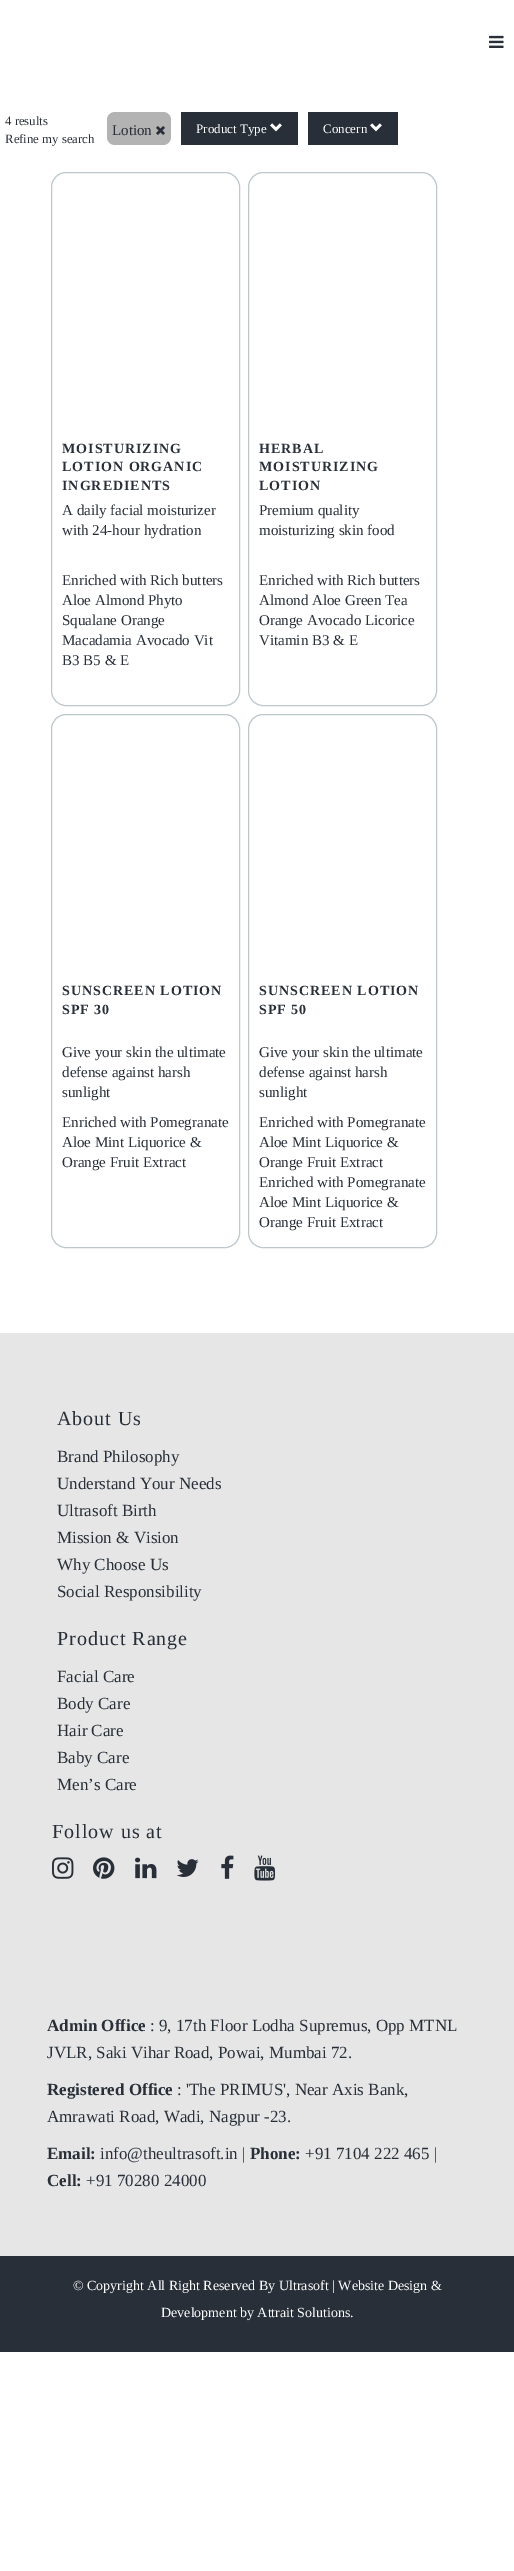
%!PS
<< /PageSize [514 2571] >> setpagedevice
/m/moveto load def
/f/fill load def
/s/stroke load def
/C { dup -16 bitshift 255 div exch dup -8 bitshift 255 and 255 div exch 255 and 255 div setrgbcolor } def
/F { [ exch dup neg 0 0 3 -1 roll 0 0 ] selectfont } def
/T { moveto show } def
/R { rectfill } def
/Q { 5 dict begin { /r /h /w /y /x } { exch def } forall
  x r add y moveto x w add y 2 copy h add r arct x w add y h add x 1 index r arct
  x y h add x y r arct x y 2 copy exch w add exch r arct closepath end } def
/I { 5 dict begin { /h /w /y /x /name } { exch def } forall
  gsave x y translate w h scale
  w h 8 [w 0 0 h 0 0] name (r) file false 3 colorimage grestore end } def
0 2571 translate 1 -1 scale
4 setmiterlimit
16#FFFFFF C
0 0 514 2571 R
(1.rgb) 489 35 15 13 I
/LiberationSerif-Regular 12.75 F
16#282F39 C
(4 results) 5 125 T
(Refine my search) 5 143 T
16#B3B3B3 C
107 112 64 33 8 Q f
/LiberationSerif-Regular 15 F
16#282F39 C
(Lotion) 112 135 T
(2.rgb) 156 126 9 9 I
181 112 117 33 R
/LiberationSerif-Regular 13 F
16#FFFFFF C
(Product Type) 196 133 T
(3.rgb) 270 123 12 9 I
16#282F39 C
308 112 90 33 R
16#FFFFFF C
(Concern) 323 133 T
(3.rgb) 370 123 12 9 I
16#BDC7CC C
51.5 172.5 188 533 14.5 Q s
/LiberationSerif-Bold 14 F
16#282F39 C
62 453 m 1 0 (MOISTURIZING) ashow
62 471 m 1 0 (LOTION ORGANIC) ashow
62 490 m 1 0 (INGREDIENTS) ashow
/LiberationSerif-Regular 15 F
(A daily facial moisturizer) 62 515 T
(with 24-hour hydration) 62 535 T
(Enriched with Rich butters) 62 585 T
(Aloe Almond Phyto) 62 605 T
(Squalane Orange) 62 625 T
(Macadamia Avocado Vit) 62 645 T
(B3 B5 & E) 62 665 T
16#BDC7CC C
248.5 172.5 188 533 14.5 Q s
/LiberationSerif-Bold 14 F
16#282F39 C
259 453 m 1 0 (HERBAL) ashow
259 471 m 1 0 (MOISTURIZING) ashow
259 490 m 1 0 (LOTION) ashow
/LiberationSerif-Regular 15 F
(Premium quality) 259 515 T
(moisturizing skin food) 259 535 T
(Enriched with Rich butters) 259 585 T
(Almond Aloe Green Tea) 259 605 T
(Orange Avocado Licorice) 259 625 T
(Vitamin B3 & E) 259 645 T
16#BDC7CC C
51.5 714.5 188 533 14.5 Q s
/LiberationSerif-Bold 14 F
16#282F39 C
62 995 m 1 0 (SUNSCREEN LOTION) ashow
62 1014 m 1 0 (SPF 30) ashow
/LiberationSerif-Regular 15 F
(Give your skin the ultimate) 62 1057 T
(defense against harsh) 62 1077 T
(sunlight) 62 1097 T
(Enriched with Pomegranate) 62 1127 T
(Aloe Mint Liquorice &) 62 1147 T
(Orange Fruit Extract) 62 1167 T
16#BDC7CC C
248.5 714.5 188 533 14.5 Q s
/LiberationSerif-Bold 14 F
16#282F39 C
259 995 m 1 0 (SUNSCREEN LOTION) ashow
259 1014 m 1 0 (SPF 50) ashow
/LiberationSerif-Regular 15 F
(Give your skin the ultimate) 259 1057 T
(defense against harsh) 259 1077 T
(sunlight) 259 1097 T
(Enriched with Pomegranate) 259 1127 T
(Aloe Mint Liquorice &) 259 1147 T
(Orange Fruit Extract) 259 1167 T
(Enriched with Pomegranate) 259 1187 T
(Aloe Mint Liquorice &) 259 1207 T
(Orange Fruit Extract) 259 1227 T
16#E6E6E6 C
0 1333 514 923 R
/LiberationSerif-Regular 20 F
16#282F39 C
57 1425 m 1 0 (About Us) ashow
/LiberationSerif-Regular 17 F
(Brand Philosophy) 57 1462 T
(Understand Your Needs) 57 1489 T
(Ultrasoft Birth) 57 1516 T
(Mission & Vision) 57 1543 T
(Why Choose Us) 57 1570 T
(Social Responsibility) 57 1597 T
/LiberationSerif-Regular 20 F
57 1645 m 1 0 (Product Range) ashow
/LiberationSerif-Regular 17 F
(Facial Care) 57 1682 T
(Body Care) 57 1709 T
(Hair Care) 57 1736 T
(Baby Care) 57 1763 T
(Men’s Care) 57 1790 T
/LiberationSerif-Regular 20 F
52 1838 m 1 0 (Follow us at) ashow
(4.rgb) 52 1857 22 22 I
(5.rgb) 93 1857 22 22 I
(6.rgb) 135 1857 22 22 I
(7.rgb) 176 1859 23 18 I
(8.rgb) 221 1855 13 24 I
(9.rgb) 254 1855 22 26 I
/LiberationSerif-Bold 17 F
(Admin Office) 47 2031 T
/LiberationSerif-Regular 17 F
(: 9, 17th Floor Lodha Supremus, Opp MTNL) 150 2031 T
(JVLR, Saki Vihar Road, Powai, Mumbai 72.) 47 2058 T
/LiberationSerif-Bold 17 F
(Registered Office) 47 2095 T
/LiberationSerif-Regular 17 F
(: 'The PRIMUS', Near Axis Bank,) 177 2095 T
(Amrawati Road, Wadi, Nagpur -23.) 47 2122 T
/LiberationSerif-Bold 17 F
(Email:) 47 2159 T
/LiberationSerif-Regular 17 F
(info@theultrasoft.in |) 100 2159 T
/LiberationSerif-Bold 17 F
(Phone:) 250 2159 T
/LiberationSerif-Regular 17 F
(+91 7104 222 465 |) 305 2159 T
/LiberationSerif-Bold 17 F
(Cell:) 47 2186 T
/LiberationSerif-Regular 17 F
(+91 70280 24000) 86 2186 T
0 2256 514 96 R
/LiberationSerif-Regular 14 F
16#FFFFFF C
(© Copyright All Right Reserved By Ultrasoft | Website Design &) 73 2290 T
(Development by Attrait Solutions) 161 2317 T
(.) 350 2317 T
showpage
